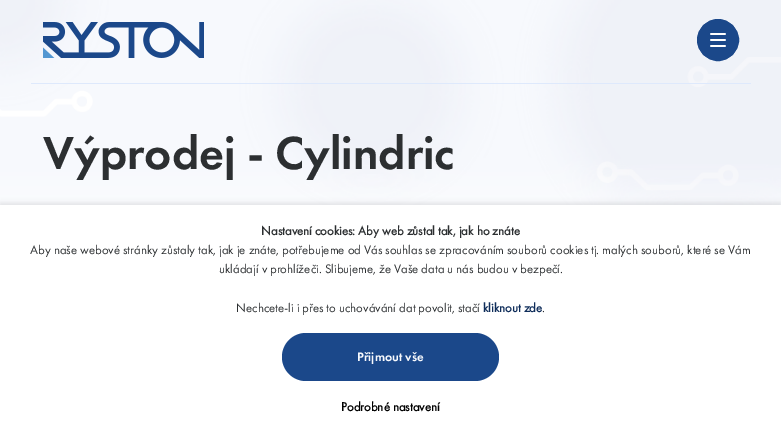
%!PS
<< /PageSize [781 432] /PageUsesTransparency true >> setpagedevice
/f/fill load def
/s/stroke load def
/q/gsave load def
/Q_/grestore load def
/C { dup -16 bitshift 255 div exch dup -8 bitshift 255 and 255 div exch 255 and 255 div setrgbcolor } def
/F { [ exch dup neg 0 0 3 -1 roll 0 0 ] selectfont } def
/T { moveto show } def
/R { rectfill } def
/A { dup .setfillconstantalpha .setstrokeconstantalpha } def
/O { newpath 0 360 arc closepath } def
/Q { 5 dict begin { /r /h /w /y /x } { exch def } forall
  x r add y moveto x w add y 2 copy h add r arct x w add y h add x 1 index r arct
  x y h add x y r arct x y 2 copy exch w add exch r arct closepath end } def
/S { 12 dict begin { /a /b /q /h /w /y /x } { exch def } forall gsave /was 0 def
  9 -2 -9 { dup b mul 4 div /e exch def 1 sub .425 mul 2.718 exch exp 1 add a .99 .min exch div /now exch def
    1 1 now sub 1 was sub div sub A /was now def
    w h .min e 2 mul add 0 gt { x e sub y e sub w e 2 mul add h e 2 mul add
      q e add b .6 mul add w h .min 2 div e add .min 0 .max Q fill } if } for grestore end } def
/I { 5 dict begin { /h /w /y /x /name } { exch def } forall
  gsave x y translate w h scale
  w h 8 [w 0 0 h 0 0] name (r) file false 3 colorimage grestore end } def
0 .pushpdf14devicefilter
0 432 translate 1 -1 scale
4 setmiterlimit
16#FFFFFF C
0 0 781 432 R
(1.rgb) 0 0 781 205 I
16#DEE9FC C
31 83 720 1 R
(2.rgb) 43 22 161 36 I
16#1B488A C
718 40 20.5 O q f Q_
s
(3.rgb) 710 33 16 14 I
/FuturaPT-Medium 48 F
16#2C2F31 C
(Výprodej - Cylindric) 43 169 T
16#000000 C
0 203 781 227 0 2.5 .1 S
16#FFFFFF C
0 205 781 227 R
/FuturaPT-Bold 12.8 F
16#2C2F31 C
(Nastavení cookies: Aby web zůstal tak, jak ho znáte) 261 235 T
/FuturaPT-Regular 12.8 F
(Aby naše webové stránky zůstaly tak, jak je znáte, potřebujeme od Vás souhlas se zpracováním souborů cookies tj. malých souborů, které se Vám) 30 254 T
(ukládají v prohlížeči. Slibujeme, že Vaše data u nás budou v bezpečí.) 219 273 T
(Nechcete-li i přes to uchovávání dat povolit, stačí) 236 312 T
/FuturaPT-Bold 12.8 F
16#0F2D5A C
(kliknout zde) 483 312 T
/FuturaPT-Regular 12.8 F
16#2C2F31 C
(.) 542 312 T
16#1B488A C
282 333 217 48 24 Q f
/FuturaPT-Medium 12.8 F
16#F7F9FD C
(Přijmout vše) 357 361 T
/FuturaPT-Bold 12.8 F
16#000000 C
(Podrobné nastavení) 341 411 T
.poppdf14devicefilter showpage
